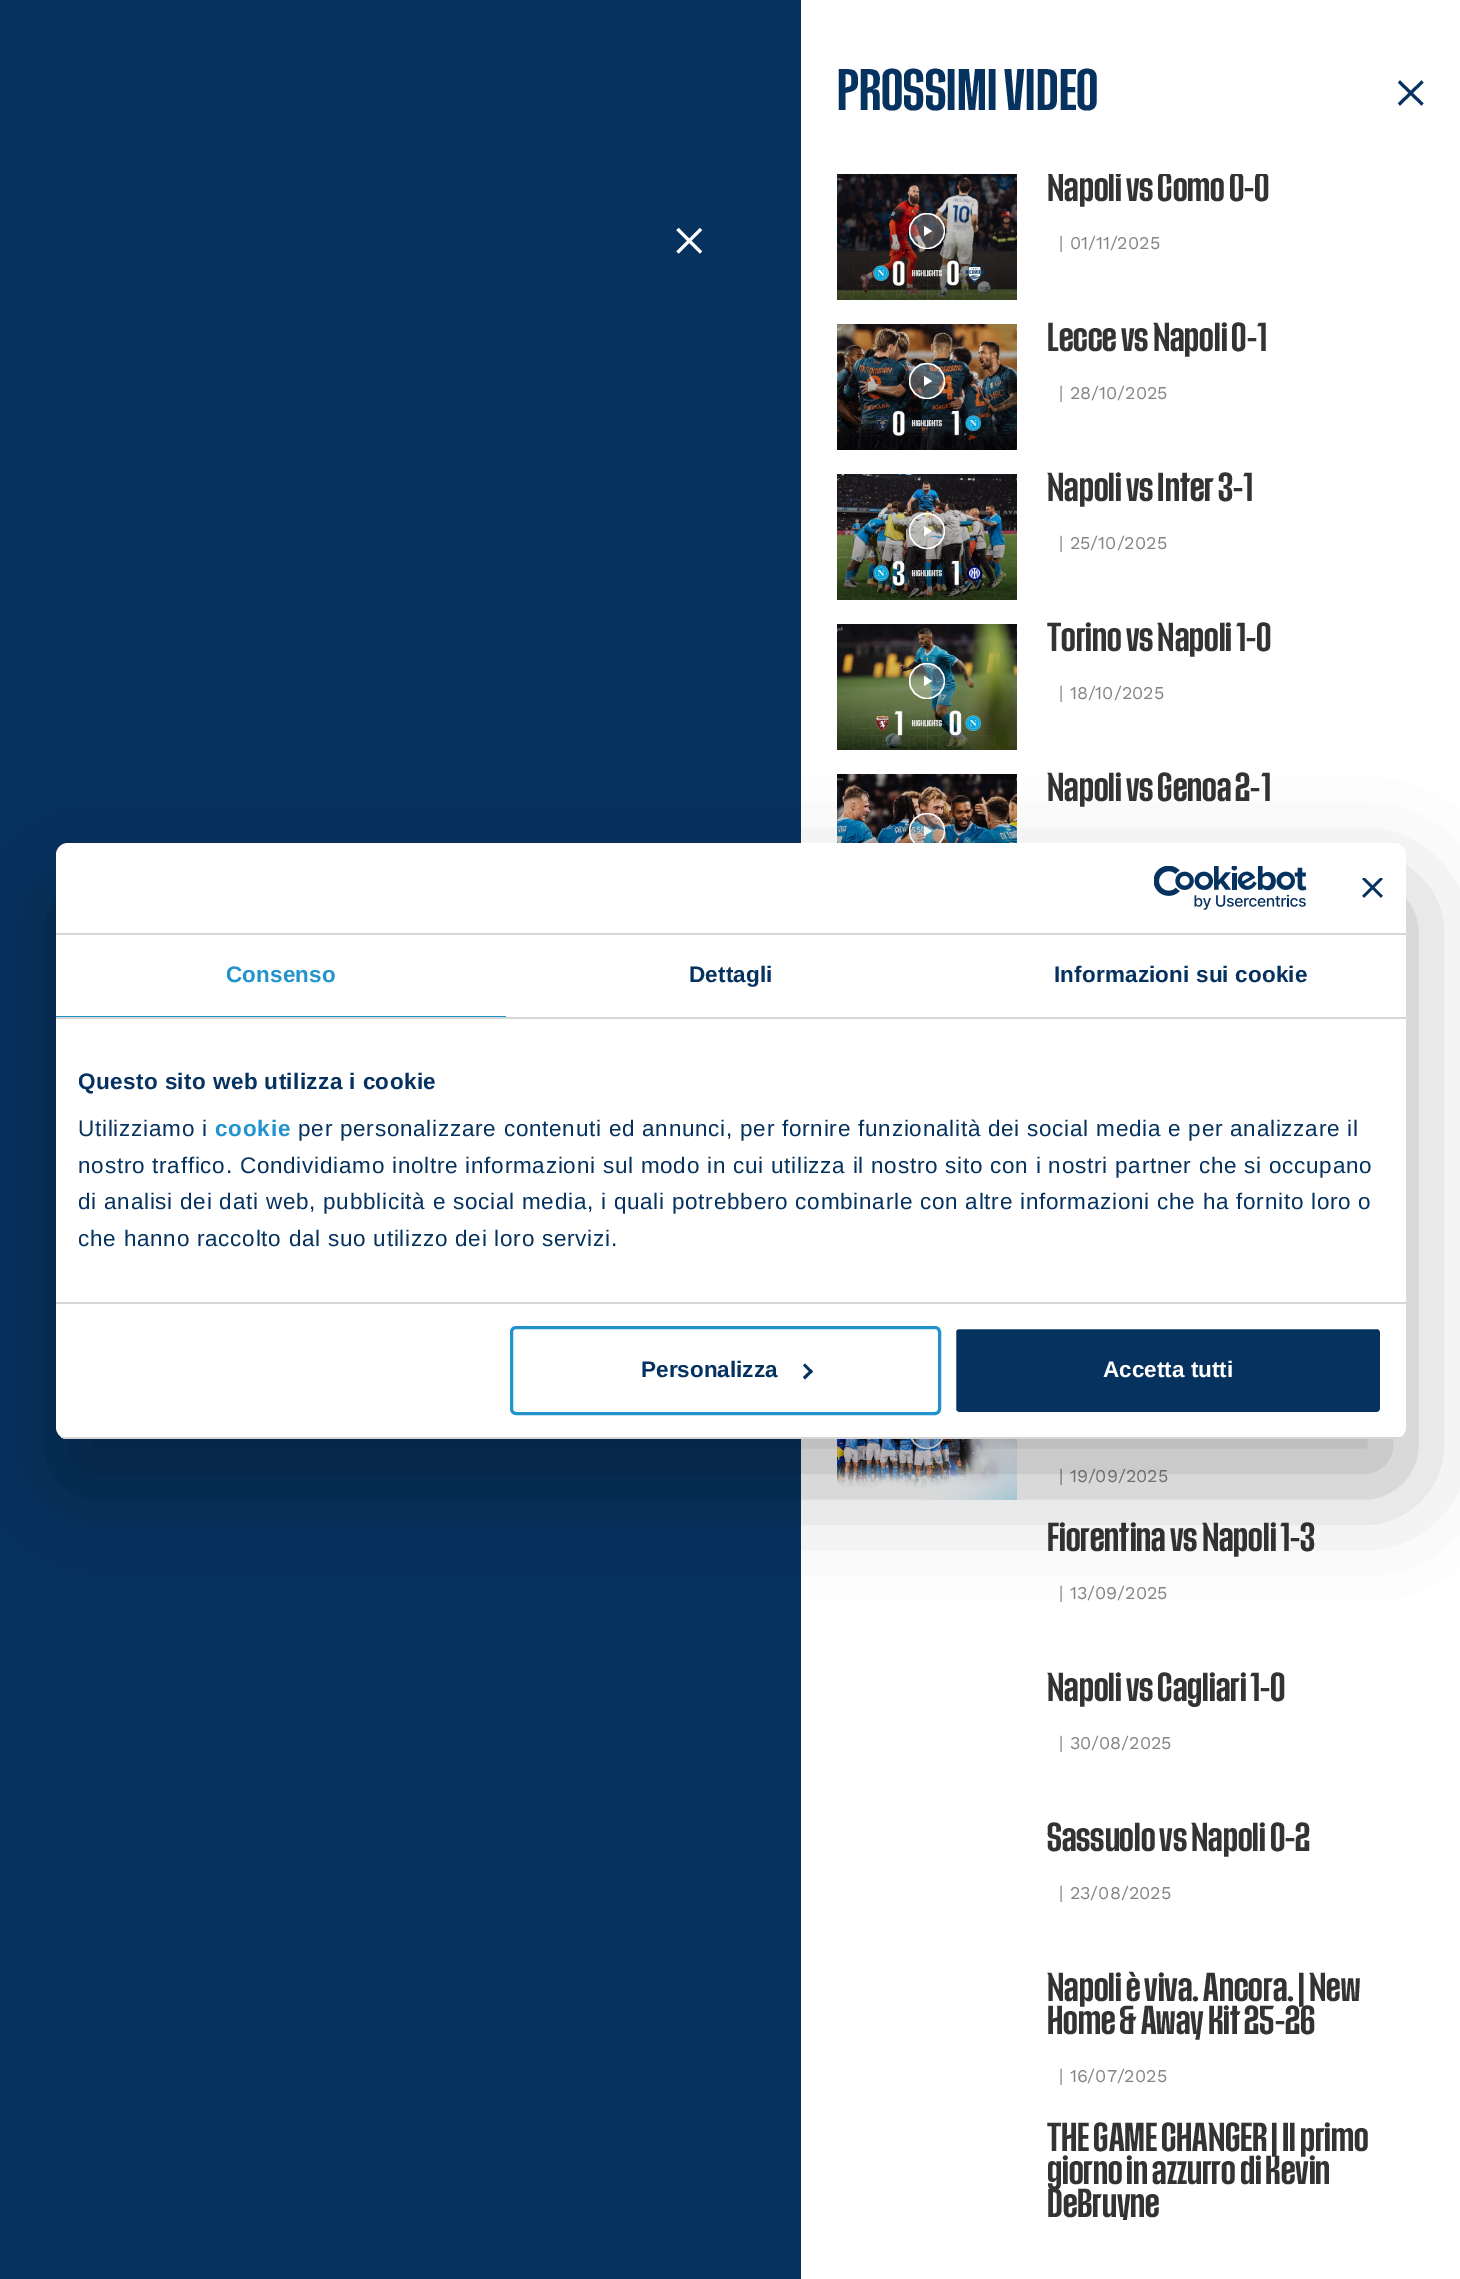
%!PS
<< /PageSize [1460 2279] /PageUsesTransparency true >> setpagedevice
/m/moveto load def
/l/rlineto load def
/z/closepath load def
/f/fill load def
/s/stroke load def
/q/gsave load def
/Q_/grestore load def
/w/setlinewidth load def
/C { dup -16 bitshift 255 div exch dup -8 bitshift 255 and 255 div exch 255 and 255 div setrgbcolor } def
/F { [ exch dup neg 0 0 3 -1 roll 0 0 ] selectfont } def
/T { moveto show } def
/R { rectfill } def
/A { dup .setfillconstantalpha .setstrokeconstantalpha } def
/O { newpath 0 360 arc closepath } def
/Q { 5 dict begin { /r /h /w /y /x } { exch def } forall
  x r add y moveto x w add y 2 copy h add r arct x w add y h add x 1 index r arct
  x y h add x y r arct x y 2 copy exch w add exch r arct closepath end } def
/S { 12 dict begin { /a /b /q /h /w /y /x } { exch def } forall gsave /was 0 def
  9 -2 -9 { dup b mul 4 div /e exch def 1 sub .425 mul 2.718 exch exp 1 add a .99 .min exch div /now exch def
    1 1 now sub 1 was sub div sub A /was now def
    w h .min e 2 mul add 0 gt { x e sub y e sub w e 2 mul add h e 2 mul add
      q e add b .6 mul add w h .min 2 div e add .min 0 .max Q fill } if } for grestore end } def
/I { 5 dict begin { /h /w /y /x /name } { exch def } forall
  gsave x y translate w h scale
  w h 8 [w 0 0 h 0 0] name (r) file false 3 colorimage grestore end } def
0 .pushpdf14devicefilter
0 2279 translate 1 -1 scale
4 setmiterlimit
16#FFFFFF C
0 0 1460 2279 R
16#06325F C
0 0 801 2279 R
16#FFFFFF C
3 w
1 setlinejoin
677.5 229 m 23.5 23.5 l 677.5 252.5 m 23.5 -23.5 l s
/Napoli-Regular 58.5 F
16#06325F C
837 110 m .4 0 (PROSSIMI VIDEO) ashow
1399 81.5 m 23.5 23 l 1399 104.5 m 23.5 -23 l s
(1.rgb) 837 174 180 126 I
0.25 A
16#FFFFFF C
927 231 17.5 O f
q
909 213 36 36 rectclip
1 A
1.4 w
0 setlinejoin
927 231 17.5 O s
Q_
1 A
924 226 m 0 10 l 8 -5 l z f
q
837 174 588 2046 rectclip
/Napoli-Regular 40.5 F
16#333333 C
(Napoli vs Como 0-0) 1047 201 T
Q_
/WorkSans-Regular 18 F
16#858585 C
(| 01/11/2025) 1059 249 T
(2.rgb) 837 324 180 126 I
0.25 A
16#FFFFFF C
927 381 17.5 O f
q
909 363 36 36 rectclip
1 A
1.4 w
0 setlinejoin
927 381 17.5 O s
Q_
1 A
924 376 m 0 10 l 8 -5 l z f
/Napoli-Regular 40.5 F
16#333333 C
(Lecce vs Napoli 0-1) 1047 351 T
/WorkSans-Regular 18 F
16#858585 C
(| 28/10/2025) 1059 399 T
(3.rgb) 837 474 180 126 I
0.25 A
16#FFFFFF C
927 531 17.5 O f
q
909 513 36 36 rectclip
1 A
1.4 w
0 setlinejoin
927 531 17.5 O s
Q_
1 A
924 526 m 0 10 l 8 -5 l z f
/Napoli-Regular 40.5 F
16#333333 C
(Napoli vs Inter 3-1) 1047 501 T
/WorkSans-Regular 18 F
16#858585 C
(| 25/10/2025) 1059 549 T
(4.rgb) 837 624 180 126 I
0.25 A
16#FFFFFF C
927 681 17.5 O f
q
909 663 36 36 rectclip
1 A
1.4 w
0 setlinejoin
927 681 17.5 O s
Q_
1 A
924 676 m 0 10 l 8 -5 l z f
/Napoli-Regular 40.5 F
16#333333 C
(Torino vs Napoli 1-0) 1047 651 T
/WorkSans-Regular 18 F
16#858585 C
(| 18/10/2025) 1059 699 T
(5.rgb) 837 774 180 69 I
0.25 A
16#FFFFFF C
927 831 17.5 O f
q
909 813 36 36 rectclip
1 A
1.4 w
0 setlinejoin
927 831 17.5 O s
Q_
1 A
924 826 m 0 10 l 8 -5 l z f
/Napoli-Regular 40.5 F
16#333333 C
(Napoli vs Genoa 2-1) 1047 801 T
(6.rgb) 837 1439 180 61 I
0.25 A
16#FFFFFF C
927 1431 17.5 O f
q
909 1413 36 36 rectclip
1 A
1.4 w
0 setlinejoin
927 1431 17.5 O s
Q_
/WorkSans-Regular 18 F
1 A
16#858585 C
(| 19/09/2025) 1059 1482 T
/Napoli-Regular 40.5 F
16#333333 C
(Fiorentina vs Napoli 1-3) 1047 1551 T
/WorkSans-Regular 18 F
16#858585 C
(| 13/09/2025) 1059 1599 T
/Napoli-Regular 40.5 F
16#333333 C
(Napoli vs Cagliari 1-0) 1047 1701 T
/WorkSans-Regular 18 F
16#858585 C
(| 30/08/2025) 1059 1749 T
/Napoli-Regular 40.5 F
16#333333 C
(Sassuolo vs Napoli 0-2) 1047 1851 T
/WorkSans-Regular 18 F
16#858585 C
(| 23/08/2025) 1059 1899 T
/Napoli-Regular 40.5 F
16#333333 C
(Napoli è viva. Ancora. | New) 1047 2001 T
(Home & Away Kit 25-26) 1047 2034 T
/WorkSans-Regular 18 F
16#858585 C
(| 16/07/2025) 1059 2082 T
/Napoli-Regular 40.5 F
16#333333 C
(THE GAME CHANGER | Il primo) 1047 2151 T
(giorno in azzurro di Kevin) 1047 2184 T
q
837 174 588 2046 rectclip
(DeBruyne) 1047 2217 T
Q_
16#000000 C
56 891 1350 596 12 51 .3 S
16#FFFFFF C
56 843 1350 596 12 Q f
16#D6D6D6 C
56 933 1350 2 R
(7.rgb) 1154 866 153 44 I
(8.rgb) 1362 878 21 20 I
56 1017 1350 2 R
16#2293CD C
56 1016 450 1 R
/LiberationSans-Bold 22.5 F
226 982 m .15 0 (Consenso) ashow
16#06325F C
689 982 m .15 0 (Dettagli) ashow
1054 982 m .15 0 (Informazioni sui cookie) ashow
16#D6D6D6 C
56 1302 1350 2 R
16#06325F C
78 1089 m .4 0 (Questo sito web utilizza i cookie) ashow
/LiberationSans-Regular 22.5 F
78 1136 m .75 0 (Utilizziamo i) ashow
/LiberationSans-Bold 22.5 F
16#2293CD C
215 1136 m .75 0 (cookie) ashow
/LiberationSans-Regular 22.5 F
16#06325F C
298 1136 m .75 0 (per personalizzare contenuti ed annunci, per fornire funzionalità dei social media e per analizzare il) ashow
78 1173 m .75 0 (nostro traffico. Condividiamo inoltre informazioni sul modo in cui utilizza il nostro sito con i nostri partner che si occupano) ashow
78 1209 m .75 0 (di analisi dei dati web, pubblicità e social media, i quali potrebbero combinarle con altre informazioni che ha fornito loro o) ashow
78 1246 m .75 0 (che hanno raccolto dal suo utilizzo dei loro servizi.) ashow
q
56 843 1350 596 12 Q clip newpath
16#D6D6D6 C
56 1437 1350 2 R
Q_
16#2293CD C
0 setlinejoin
511.5 1327.5 428 86 4.5 Q s
/LiberationSans-Bold 22.5 F
16#06325F C
(Personalizza) 641 1377 T
805 1363.5 m 8 8 l -2 2 l -8 -8 l z f
811 1369.5 m 2 2 l -8 8 l -2 -2.5 l z f
954.5 1327.5 427 86 4.5 Q q f Q_
16#FFFFFF C
s
(Accetta tutti) 1103 1377 T
.poppdf14devicefilter showpage
